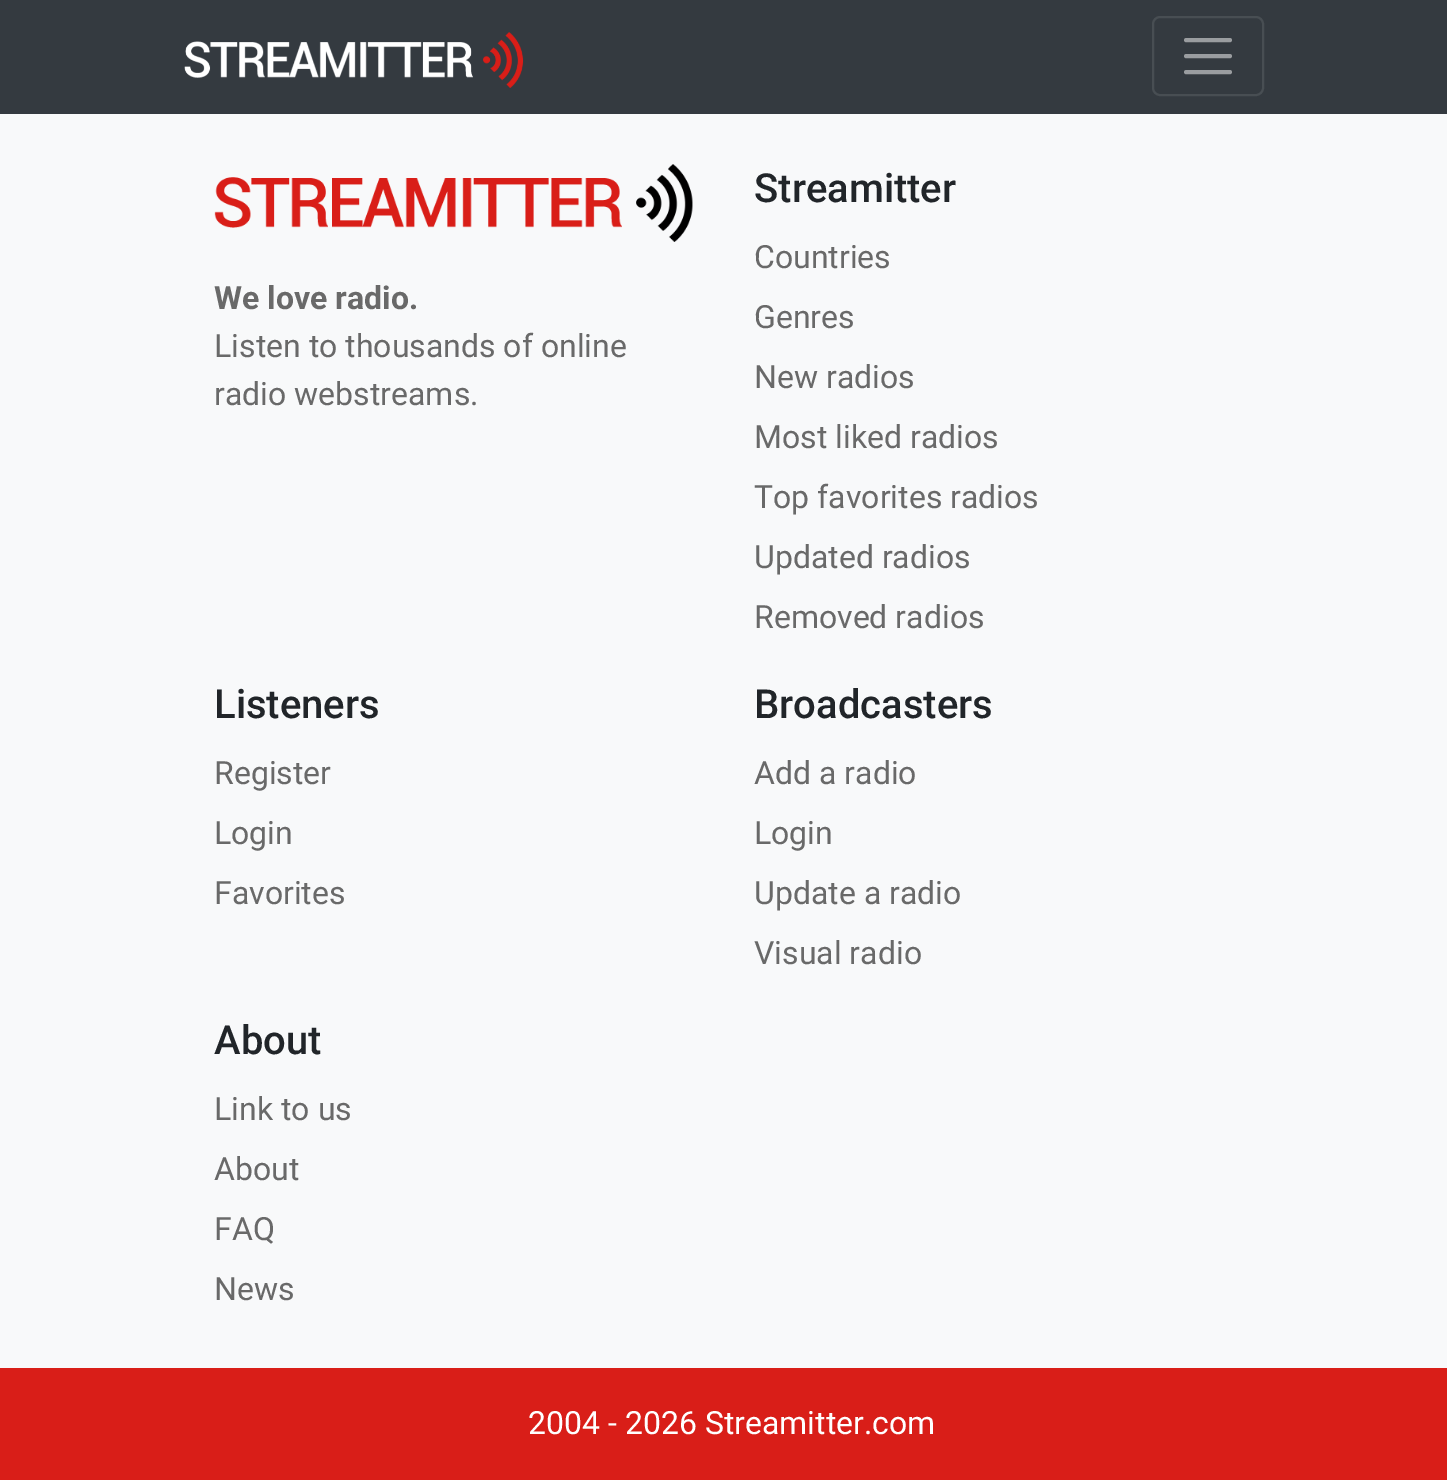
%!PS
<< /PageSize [1447 1480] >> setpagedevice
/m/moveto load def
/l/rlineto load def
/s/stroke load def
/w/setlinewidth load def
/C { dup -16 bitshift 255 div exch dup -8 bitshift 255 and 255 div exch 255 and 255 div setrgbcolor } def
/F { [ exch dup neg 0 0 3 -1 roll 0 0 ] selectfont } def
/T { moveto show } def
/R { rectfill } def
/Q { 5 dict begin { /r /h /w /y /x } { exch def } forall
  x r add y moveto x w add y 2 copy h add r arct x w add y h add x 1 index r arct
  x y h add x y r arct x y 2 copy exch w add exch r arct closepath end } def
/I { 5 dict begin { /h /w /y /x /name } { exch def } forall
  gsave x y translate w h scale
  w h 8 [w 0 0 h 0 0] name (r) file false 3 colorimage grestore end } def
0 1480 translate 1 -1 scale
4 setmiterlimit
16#F8F9FA C
0 0 1447 1480 R
16#343A40 C
0 0 1447 114 R
(1.rgb) 184 32 340 56 I
16#484E53 C
2 w
1153 17 110 78 7 Q s
16#9A9DA0 C
4 w
1 setlinecap
1186 40 m 44 0 l 1186 56 m 44 0 l 1186 72 m 44 0 l s
(2.rgb) 214 164 479 78 I
/Roboto-Bold 32 F
16#696969 C
(We love radio.) 214 309 T
/Roboto-Regular 32 F
(Listen to thousands of online) 214 357 T
(radio webstreams.) 214 405 T
/Roboto-Medium 40 F
16#212529 C
(Streamitter) 754 202 T
/Roboto-Regular 32 F
16#696969 C
(Countries) 754 268 T
(Genres) 754 328 T
(New radios) 754 388 T
(Most liked radios) 754 448 T
(Top favorites radios) 754 508 T
(Updated radios) 754 568 T
(Removed radios) 754 628 T
/Roboto-Medium 40 F
16#212529 C
(Listeners) 214 718 T
/Roboto-Regular 32 F
16#696969 C
(Register) 214 784 T
(Login) 214 844 T
(Favorites) 214 904 T
/Roboto-Medium 40 F
16#212529 C
(Broadcasters) 754 718 T
/Roboto-Regular 32 F
16#696969 C
(Add a radio) 754 784 T
(Login) 754 844 T
(Update a radio) 754 904 T
(Visual radio) 754 964 T
/Roboto-Medium 40 F
16#212529 C
(About) 214 1054 T
/Roboto-Regular 32 F
16#696969 C
(Link to us) 214 1120 T
(About) 214 1180 T
(FAQ) 214 1240 T
(News) 214 1300 T
16#D91E18 C
0 1368 1447 112 R
16#FFFFFF C
(2004 - 2026 Streamitter.com) 528 1434 T
showpage
